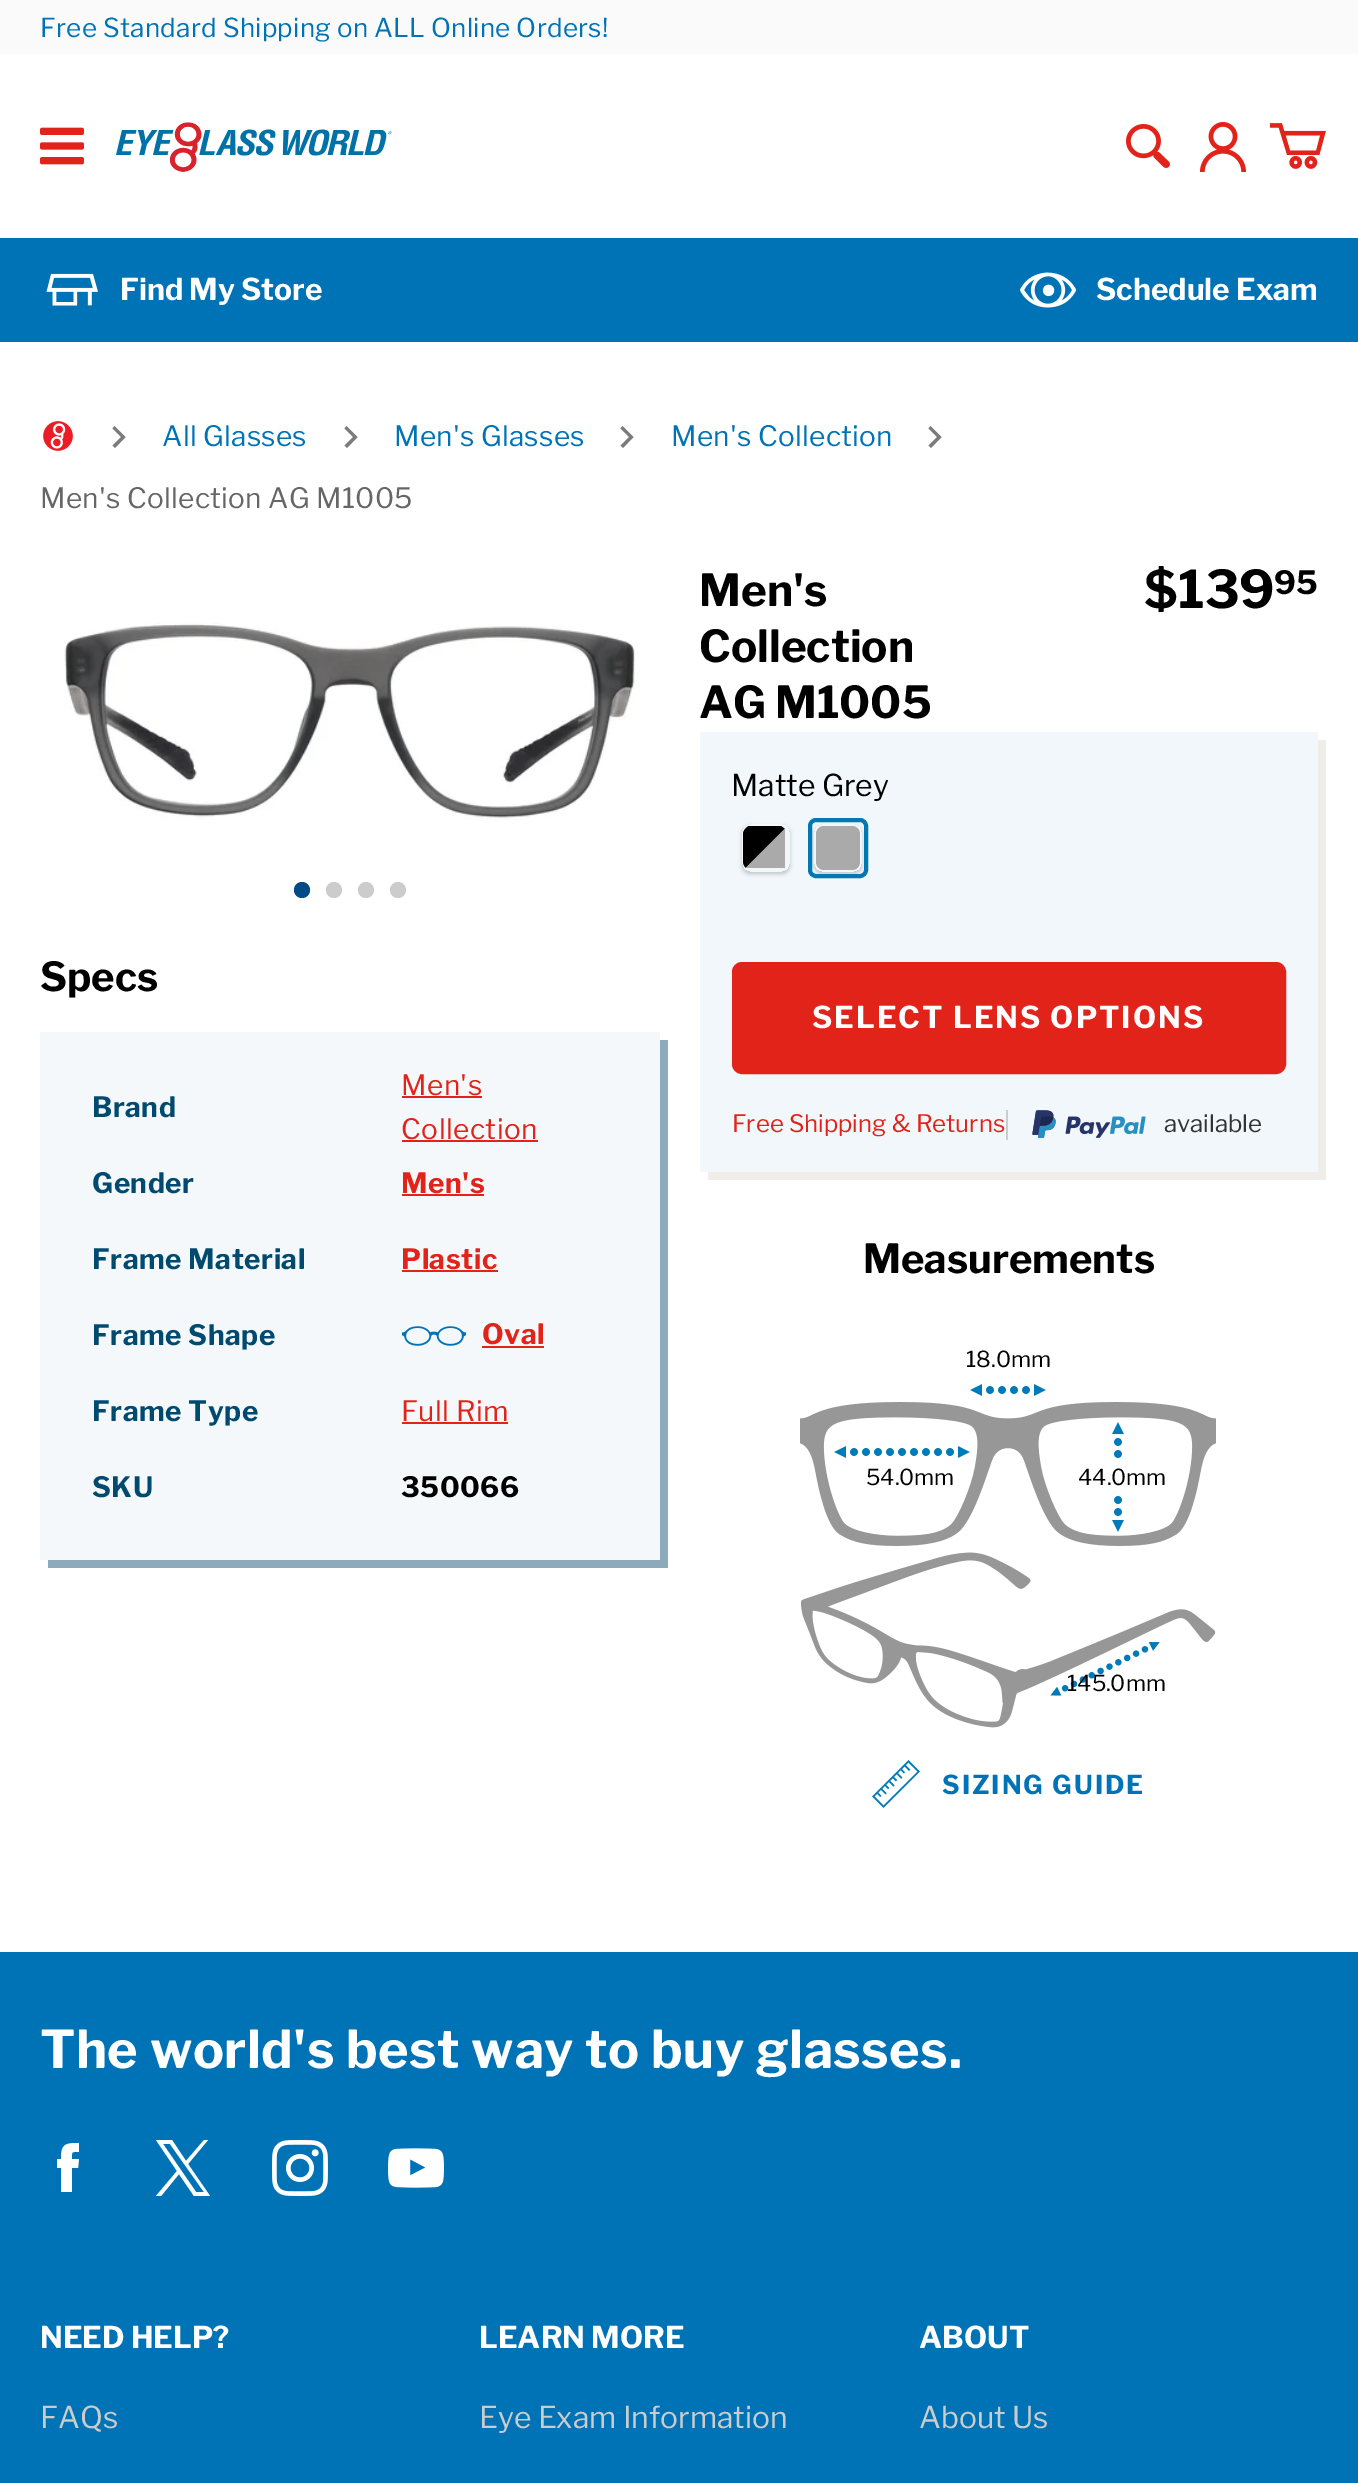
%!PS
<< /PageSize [1358 2483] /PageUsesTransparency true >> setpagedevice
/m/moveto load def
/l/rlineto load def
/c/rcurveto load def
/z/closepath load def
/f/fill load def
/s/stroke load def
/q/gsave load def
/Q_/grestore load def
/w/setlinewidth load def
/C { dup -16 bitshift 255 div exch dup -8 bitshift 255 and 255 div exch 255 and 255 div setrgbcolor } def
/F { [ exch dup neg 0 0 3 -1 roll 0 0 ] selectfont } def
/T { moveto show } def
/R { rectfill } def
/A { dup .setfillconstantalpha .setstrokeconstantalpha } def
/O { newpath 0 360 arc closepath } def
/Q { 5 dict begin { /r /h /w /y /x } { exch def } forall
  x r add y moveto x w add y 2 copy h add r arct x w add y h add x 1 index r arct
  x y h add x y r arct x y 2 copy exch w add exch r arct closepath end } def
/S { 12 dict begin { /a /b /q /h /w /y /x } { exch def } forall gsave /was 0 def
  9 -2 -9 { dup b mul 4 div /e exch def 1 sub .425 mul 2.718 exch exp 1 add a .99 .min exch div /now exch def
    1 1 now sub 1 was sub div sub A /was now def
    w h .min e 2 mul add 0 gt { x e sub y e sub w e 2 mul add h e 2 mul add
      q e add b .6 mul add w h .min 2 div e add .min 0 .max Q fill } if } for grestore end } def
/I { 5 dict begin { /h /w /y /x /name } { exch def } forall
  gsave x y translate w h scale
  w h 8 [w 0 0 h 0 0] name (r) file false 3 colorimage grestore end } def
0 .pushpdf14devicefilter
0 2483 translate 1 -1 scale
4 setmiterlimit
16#FFFFFF C
0 0 1358 2483 R
16#FAFAFA C
0 0 1358 54 R
/LibreFranklin-Thin 26 F
16#0073B7 C
40 37 m .3 0 (Free Standard Shipping on ALL Online Orders!) ashow
(1.rgb) 40 127 44 38 I
(2.rgb) 116 122 276 50 I
(3.rgb) 1126 124 44 44 I
(4.rgb) 1200 122 46 50 I
(5.rgb) 1270 123 56 46 I
0 238 1358 104 R
(6.rgb) 46 273 52 33 I
/LibreFranklin-Bold 30 F
16#FFFFFF C
(Find My Store) 120 300 T
(7.rgb) 1020 272 56 36 I
(Schedule Exam) 1096 300 T
(8.rgb) 43 421 30 30 I
16#7B7B7B C
125.5 437 m -11 -11 l -2 2.5 l 8.5 8.5 l -8.5 8.5 l 2.5 2.5 l z f
/LibreFranklin-Thin 28 F
16#0073B7 C
162 446 m .3 0 (All Glasses) ashow
16#7B7B7B C
357.5 437 m -11 -11 l -2 2.5 l 8.5 8.5 l -8.5 8.5 l 2.5 2.5 l z f
16#0073B7 C
394 446 m .3 0 (Men's Glasses) ashow
16#7B7B7B C
633.5 437 m -11 -11 l -2 2.5 l 8.5 8.5 l -8.5 8.5 l 2.5 2.5 l z f
16#0073B7 C
671 446 m .3 0 (Men's Collection) ashow
16#7B7B7B C
941.5 437 m -11 -11 l -2 2.5 l 8.5 8.5 l -8.5 8.5 l 2.5 2.5 l z f
16#666666 C
40 508 m .3 0 (Men's Collection AG M1005) ashow
(9.rgb) 64 622 571 198 I
16#024B86 C
302 890 8 O f
16#CCCCCC C
334 890 8 O f
366 890 8 O f
398 890 8 O f
/LibreFranklin-Bold 40 F
16#000000 C
(Specs) 40 991 T
16#8CAABB C
48 1560 m 0 8 l 620 0 l 0 -528 l -8 0 l 0 520 l z f
16#F5F8FA C
40 1032 620 528 R
/LibreFranklin-Bold 28 F
16#004A70 C
92 1117 m .5 0 (Brand) ashow
/LibreFranklin-Thin 28 F
16#E2231A C
401 1095 m .5 0 (Men's) ashow
402 1096 80 2 R
401 1139 m .5 0 (Collection) ashow
402 1140 136 2 R
/LibreFranklin-Bold 28 F
16#004A70 C
92 1193 m .5 0 (Gender) ashow
16#E2231A C
401 1193 m .5 0 (Men's) ashow
402 1194 82 2 R
16#004A70 C
92 1269 m .5 0 (Frame Material) ashow
16#E2231A C
401 1269 m .5 0 (Plastic) ashow
402 1270 96 2 R
16#004A70 C
92 1345 m .5 0 (Frame Shape) ashow
(10.rgb) 402 1326 64 20 I
16#E2231A C
482 1344 m .5 0 (Oval) ashow
482 1346 62 2 R
16#004A70 C
92 1421 m .5 0 (Frame Type) ashow
/LibreFranklin-Thin 28 F
16#E2231A C
401 1421 m .5 0 (Full Rim) ashow
402 1422 106 2 R
/LibreFranklin-Bold 28 F
16#004A70 C
92 1497 m .5 0 (SKU) ashow
16#000000 C
401 1497 m .5 0 (350066) ashow
/LibreFranklin-Bold 44 F
(Men's) 699 606 T
(Collection) 699 662 T
(AG M1005) 699 718 T
/LibreFranklin-Bold 52 F
($139) 1144 608 T
/LibreFranklin-Bold 32 F
(95) 1274 594 T
16#EFEDE7 C
708 1172 m 0 8 l 618 0 l 0 -440 l -8 0 l 0 432 l z f
16#F1F7FA C
700 732 618 440 R
/LibreFranklin-Thin 30 F
16#000000 C
(Matte Grey) 731 796 T
q
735 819 m 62 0 l 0 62 l -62 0 l z 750 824 m 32 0 l 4.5 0 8 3.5 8 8 c 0 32 l 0 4.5 -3.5 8 -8 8 c -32 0 l -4.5 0 -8 -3.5 -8 -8 c 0 -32 l 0 -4.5 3.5 -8 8 -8 c z eoclip newpath
742 826 48 48 8 2 .2 S
Q_
785 829 m -39 39 l -2 -2 -3 -4 -3 -6 c 0 -28 l 0 -3 3 -7 6 -8 c 32 0 l z f
16#AAAAAA C
785 828.5 m 0 39.5 l -39 0 l 0 -.5 l z f
q
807 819 m 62 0 l 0 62 l -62 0 l z 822 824 m 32 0 l 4.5 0 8 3.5 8 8 c 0 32 l 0 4.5 -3.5 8 -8 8 c -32 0 l -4.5 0 -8 -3.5 -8 -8 c 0 -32 l 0 -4.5 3.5 -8 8 -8 c z eoclip newpath
16#000000 C
814 826 48 48 8 2 .2 S
Q_
16#0078B4 C
4 w
810 820 56 56 6 Q s
16#AAAAAA C
816 826 44 44 8 Q f
16#E2231A C
734 964 550 108 8 Q q f Q_
s
/LibreFranklin-Bold 30 F
16#FFFFFF C
812 1028 m 2 0 (SELECT LENS OPTIONS) ashow
16#CCCCCC C
1006 1110 2 30 R
/LibreFranklin-Thin 24 F
16#E2231A C
(Free Shipping & Returns) 732 1132 T
(11.rgb) 1032 1110 114 28 I
16#333333 C
(available) 1164 1132 T
/LibreFranklin-Bold 40 F
16#000000 C
(Measurements) 863 1273 T
/LibreFranklin-Thin 22 F
(18.0mm) 966 1367 T
(12.rgb) 800 1384 416 162 I
(54.0mm) 866 1485 T
(44.0mm) 1078 1485 T
(13.rgb) 801 1552 415 176 I
(145.0mm) 1067 1691 T
(14.rgb) 872 1760 48 48 I
/LibreFranklin-Bold 26 F
16#0073B7 C
942 1794 m 2 0 (SIZING GUIDE) ashow
0 1952 1358 531 R
/LibreFranklin-Bold 52 F
16#FFFFFF C
40 2068 m .5 0 (The world's best way to buy glasses.) ashow
79 2159 m -7 0 l 0 -8 -1 -7 7 -7 c 0 -9 l -14 0 -18 1 -18 16 c -4 0 l 0 9 l 4 0 l 0 24 l 11 0 l 0 -24 l 6 0 l z f
156 2140 m 16 0 l 14 21 l 18 -21 l 4 0 l -20 24 l 22 32 l -16 0 l -15 -22 l -18 22 l -5 0 l 21 -25 l z 163 2144 m 33 48 l 8 0 l -34 -48 l z f
(15.rgb) 272 2140 56 56 I
(16.rgb) 388 2148 56 40 I
/LibreFranklin-Bold 30 F
(NEED HELP?) 40 2348 T
/LibreFranklin-Thin 30 F
16#CCCCCC C
(FAQs) 40 2428 T
/LibreFranklin-Bold 30 F
16#FFFFFF C
(LEARN MORE) 479 2348 T
/LibreFranklin-Thin 30 F
16#CCCCCC C
(Eye Exam Information) 479 2428 T
/LibreFranklin-Bold 30 F
16#FFFFFF C
(ABOUT) 919 2348 T
/LibreFranklin-Thin 30 F
16#CCCCCC C
(About Us) 919 2428 T
.poppdf14devicefilter showpage
